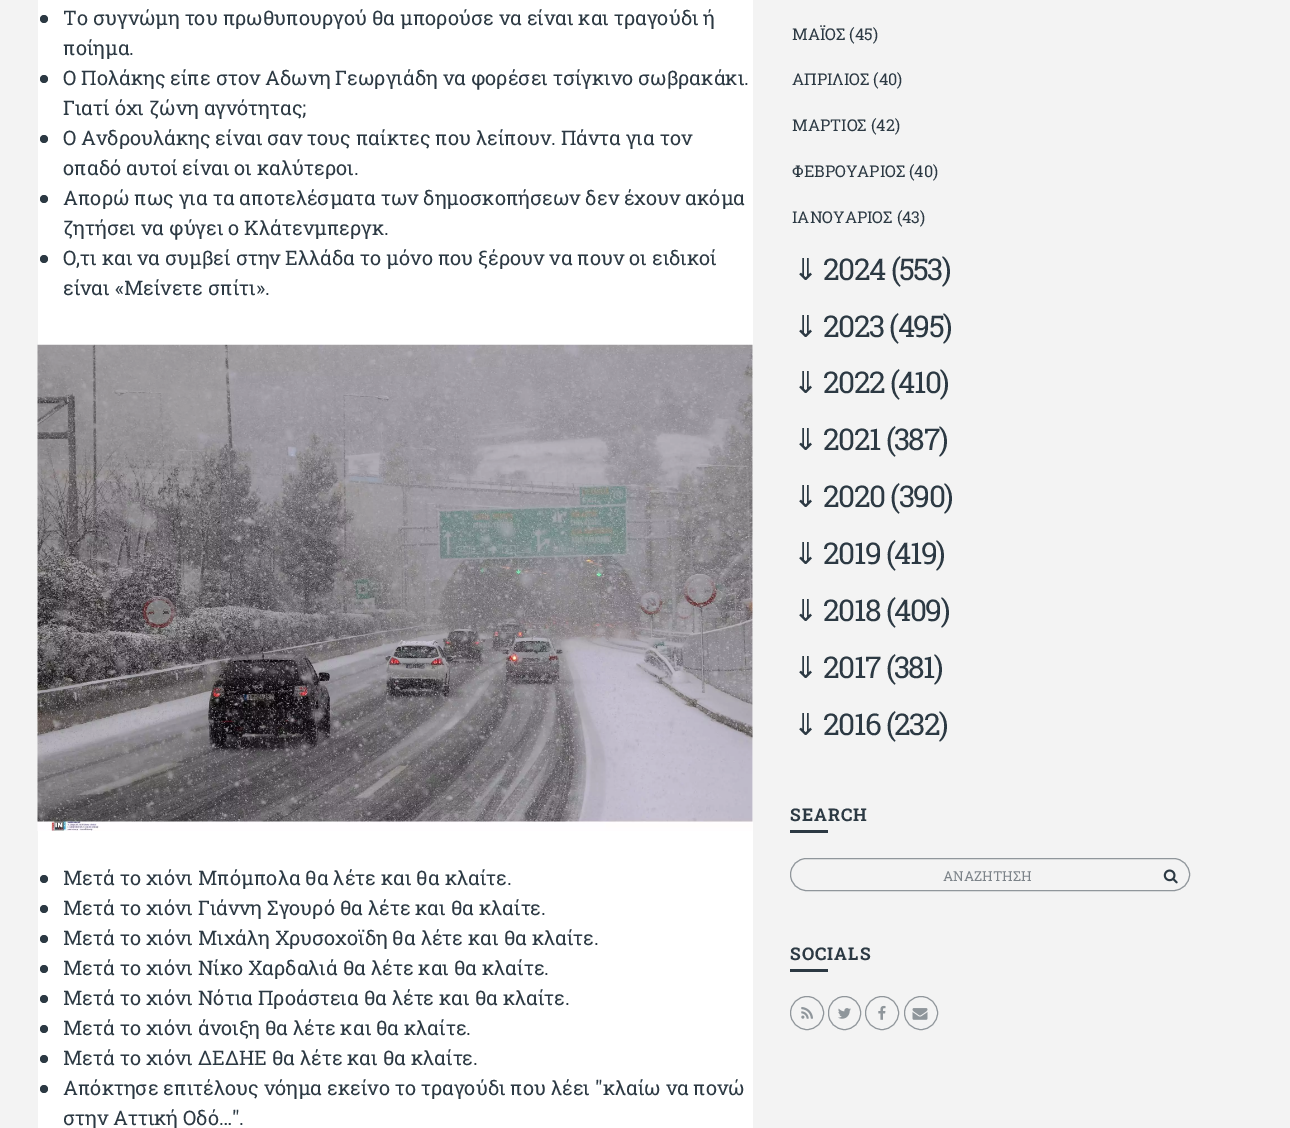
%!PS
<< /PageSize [1290 1128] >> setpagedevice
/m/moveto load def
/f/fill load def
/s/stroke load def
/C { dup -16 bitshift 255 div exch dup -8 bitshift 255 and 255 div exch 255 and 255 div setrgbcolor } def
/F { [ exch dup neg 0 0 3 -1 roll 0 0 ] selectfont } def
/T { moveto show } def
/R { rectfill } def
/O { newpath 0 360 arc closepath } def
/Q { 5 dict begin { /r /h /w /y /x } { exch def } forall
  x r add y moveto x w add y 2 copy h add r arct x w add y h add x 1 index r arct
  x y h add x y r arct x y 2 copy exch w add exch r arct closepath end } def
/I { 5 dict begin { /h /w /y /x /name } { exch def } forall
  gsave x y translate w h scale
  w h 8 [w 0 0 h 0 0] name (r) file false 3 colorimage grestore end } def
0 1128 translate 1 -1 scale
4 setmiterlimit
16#F3F3F3 C
0 0 1290 1128 R
16#FFFFFF C
38 0 715 1128 R
16#2C3943 C
44 19 4 O f
/RobotoSlab-Regular 20 F
(Το συγνώμη του πρωθυπουργού θα μπορούσε να είναι και τραγούδι ή) 63 25 T
(ποίημα.) 63 55 T
44 79 4 O f
(Ο Πολάκης είπε στον Αδωνη Γεωργιάδη να φορέσει τσίγκινο σωβρακάκι.) 63 85 T
(Γιατί όχι ζώνη αγνότητας;) 63 115 T
44 139 4 O f
(Ο Ανδρουλάκης είναι σαν τους παίκτες που λείπουν. Πάντα για τον) 63 145 T
(οπαδό αυτοί είναι οι καλύτεροι.) 63 175 T
44 199 4 O f
(Απορώ πως για τα αποτελέσματα των δημοσκοπήσεων δεν έχουν ακόμα) 63 205 T
(ζητήσει να φύγει ο Κλάτενμπεργκ.) 63 235 T
44 259 4 O f
(Ο,τι και να συμβεί στην Ελλάδα το μόνο που ξέρουν να πουν οι ειδικοί) 63 265 T
(είναι «Μείνετε σπίτι».) 63 295 T
(1.rgb) 37 344 716 487 I
44 879 4 O f
(Μετά το χιόνι Μπόμπολα θα λέτε και θα κλαίτε.) 63 885 T
44 909 4 O f
(Μετά το χιόνι Γιάννη Σγουρό θα λέτε και θα κλαίτε.) 63 915 T
44 939 4 O f
(Μετά το χιόνι Μιχάλη Χρυσοχοϊδη θα λέτε και θα κλαίτε.) 63 945 T
44 969 4 O f
(Μετά το χιόνι Νίκο Χαρδαλιά θα λέτε και θα κλαίτε.) 63 975 T
44 999 4 O f
(Μετά το χιόνι Νότια Προάστεια θα λέτε και θα κλαίτε.) 63 1005 T
44 1029 4 O f
(Μετά το χιόνι άνοιξη θα λέτε και θα κλαίτε.) 63 1035 T
44 1059 4 O f
(Μετά το χιόνι ΔΕΔΗΕ θα λέτε και θα κλαίτε.) 63 1065 T
44 1089 4 O f
(Απόκτησε επιτέλους νόημα εκείνο το τραγούδι που λέει "κλαίω να πονώ) 63 1095 T
(στην Αττική Οδό…".) 63 1125 T
/RobotoSlab-Regular 16.25 F
(ΜΑΪΟΣ \(45\)) 792 40 T
(ΑΠΡΙΛΙΟΣ \(40\)) 792 85 T
(ΜΑΡΤΙΟΣ \(42\)) 792 131 T
(ΦΕΒΡΟΥΑΡΙΟΣ \(40\)) 792 177 T
(ΙΑΝΟΥΑΡΙΟΣ \(43\)) 792 223 T
/DejaVuSans-Regular 30 F
793 280 m -1.5 0 (⇓) ashow
/RobotoSlab-Regular 30 F
823 280 m -1.5 0 (2024 \(553\)) ashow
/DejaVuSans-Regular 30 F
793 337 m -1.5 0 (⇓) ashow
/RobotoSlab-Regular 30 F
823 337 m -1.5 0 (2023 \(495\)) ashow
/DejaVuSans-Regular 30 F
793 393 m -1.5 0 (⇓) ashow
/RobotoSlab-Regular 30 F
823 393 m -1.5 0 (2022 \(410\)) ashow
/DejaVuSans-Regular 30 F
793 450 m -1.5 0 (⇓) ashow
/RobotoSlab-Regular 30 F
823 450 m -1.5 0 (2021 \(387\)) ashow
/DejaVuSans-Regular 30 F
793 507 m -1.5 0 (⇓) ashow
/RobotoSlab-Regular 30 F
823 507 m -1.5 0 (2020 \(390\)) ashow
/DejaVuSans-Regular 30 F
793 564 m -1.5 0 (⇓) ashow
/RobotoSlab-Regular 30 F
823 564 m -1.5 0 (2019 \(419\)) ashow
/DejaVuSans-Regular 30 F
793 621 m -1.5 0 (⇓) ashow
/RobotoSlab-Regular 30 F
823 621 m -1.5 0 (2018 \(409\)) ashow
/DejaVuSans-Regular 30 F
793 678 m -1.5 0 (⇓) ashow
/RobotoSlab-Regular 30 F
823 678 m -1.5 0 (2017 \(381\)) ashow
/DejaVuSans-Regular 30 F
793 735 m -1.5 0 (⇓) ashow
/RobotoSlab-Regular 30 F
823 735 m -1.5 0 (2016 \(232\)) ashow
/RobotoSlab-Bold 17.5 F
790 821 m 1 0 (SEARCH) ashow
790 830 38 3 R
16#90969B C
790.5 858.5 399 32 16 Q s
/RobotoSlab-Regular 13.75 F
16#7C8389 C
(ΑΝΑΖΗΤΗΣΗ) 943 881 T
(2.rgb) 1163 869 15 15 I
/RobotoSlab-Bold 17.5 F
16#2C3943 C
790 960 m 1 0 (SOCIALS) ashow
790 969 38 3 R
16#90969B C
807 1013 16.5 O s
(3.rgb) 801 1007 12 12 I
828.5 996.5 32 33 16 Q s
(4.rgb) 838 1008 13 11 I
882 1013 16.5 O s
(5.rgb) 878 1005 8 15 I
921 1013 16.5 O s
(6.rgb) 912 1008 16 12 I
showpage
